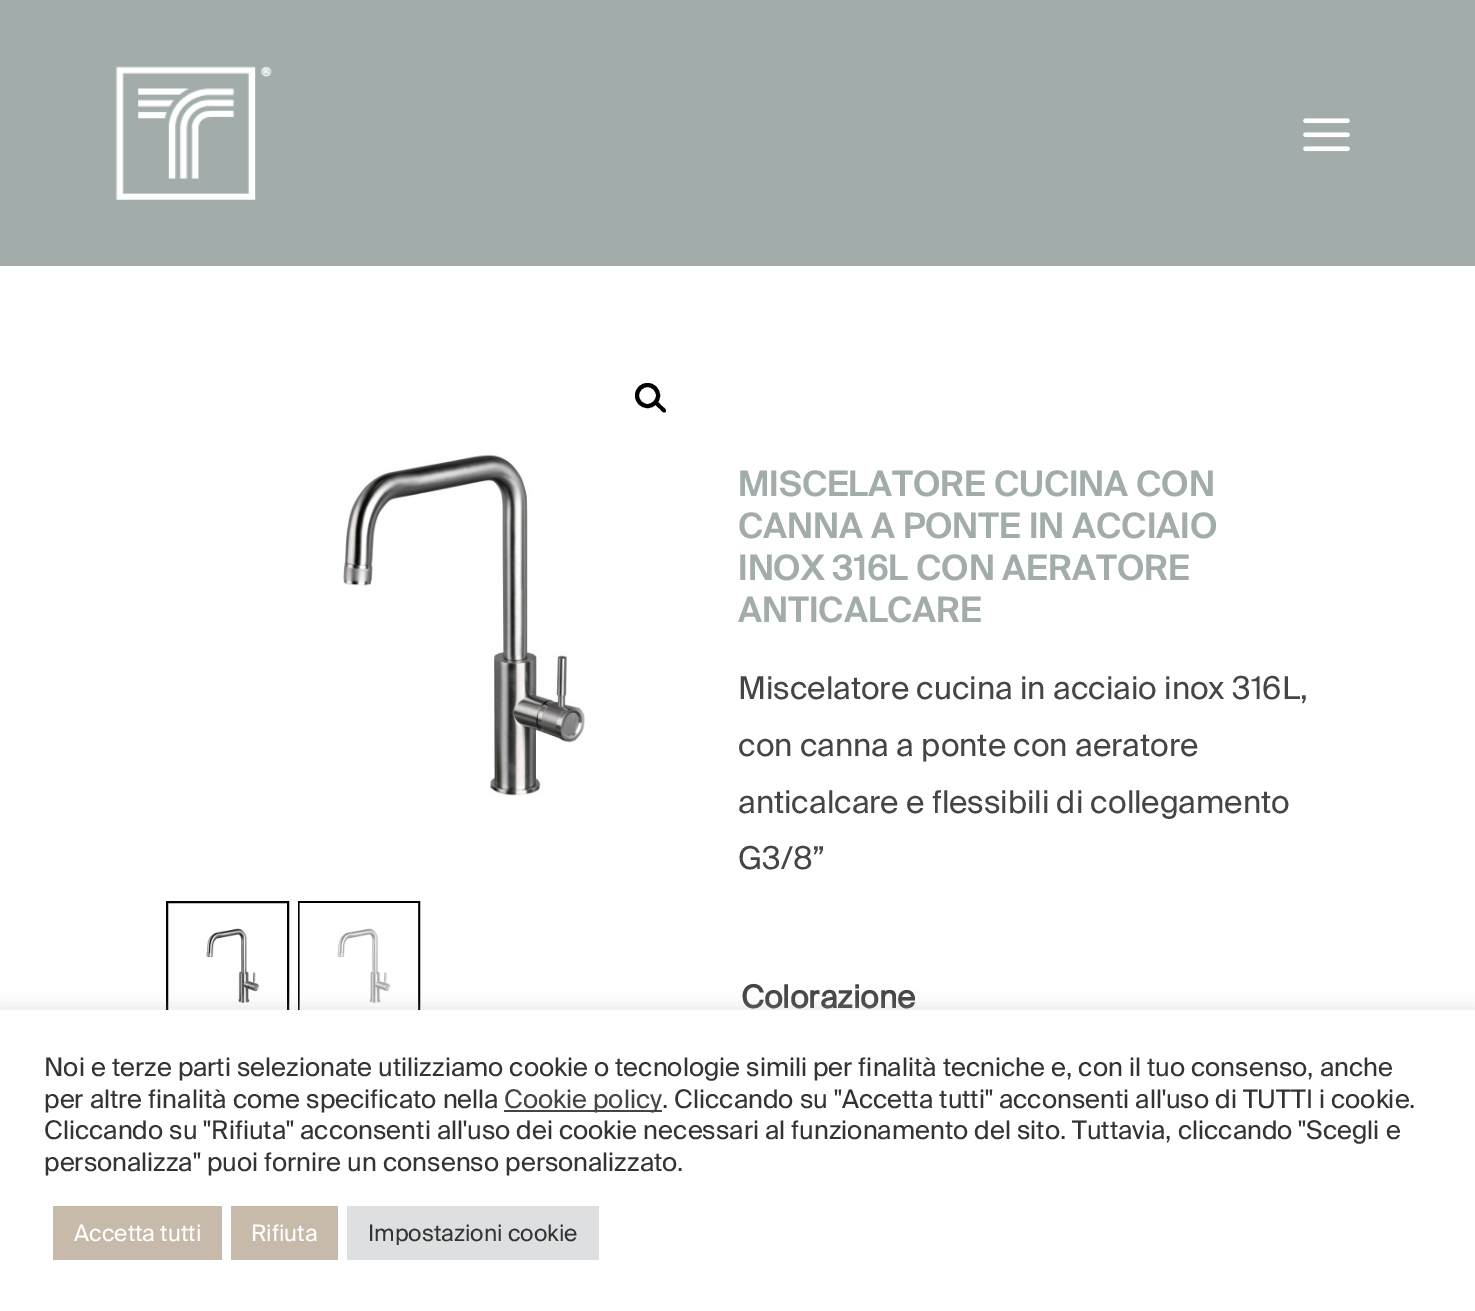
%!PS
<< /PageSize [1475 1311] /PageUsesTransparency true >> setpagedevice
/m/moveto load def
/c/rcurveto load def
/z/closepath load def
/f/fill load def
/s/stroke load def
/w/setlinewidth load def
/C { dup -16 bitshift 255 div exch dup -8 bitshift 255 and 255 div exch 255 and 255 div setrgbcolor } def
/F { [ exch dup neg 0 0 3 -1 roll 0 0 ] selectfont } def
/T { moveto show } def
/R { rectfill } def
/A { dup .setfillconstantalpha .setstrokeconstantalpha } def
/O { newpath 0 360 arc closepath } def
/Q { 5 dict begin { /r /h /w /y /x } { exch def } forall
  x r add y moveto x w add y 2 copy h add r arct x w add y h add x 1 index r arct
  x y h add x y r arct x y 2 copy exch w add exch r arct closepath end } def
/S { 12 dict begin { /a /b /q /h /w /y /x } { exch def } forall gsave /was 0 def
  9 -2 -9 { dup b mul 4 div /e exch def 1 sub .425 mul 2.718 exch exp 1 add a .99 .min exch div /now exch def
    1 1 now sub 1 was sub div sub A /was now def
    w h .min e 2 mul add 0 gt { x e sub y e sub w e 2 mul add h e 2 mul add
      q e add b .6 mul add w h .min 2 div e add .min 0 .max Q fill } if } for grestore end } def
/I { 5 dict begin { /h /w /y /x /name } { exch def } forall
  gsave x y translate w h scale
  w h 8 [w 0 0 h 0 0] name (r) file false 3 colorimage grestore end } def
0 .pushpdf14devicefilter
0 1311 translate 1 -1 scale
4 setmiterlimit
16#FFFFFF C
0 0 1475 1311 R
16#A2ACAB C
0 0 1475 266 R
(1.rgb) 115 66 157 134 I
(2.rgb) 1303 118 47 34 I
16#000000 C
4 w
647.5 395.5 10.5 O s
655.5 402 m 2 -2 5 3 6.5 4 c 1 1 5.5 4 3.5 6 c -2 2 -5 -2.5 -6 -3.5 c -1.5 -1 -6 -4.5 -4 -6.5 c z f
(3.rgb) 343 454 242 342 I
2 w
167 902 121 121 rectstroke
(4.rgb) 206 928 54 75 I
299 902 120 121 rectstroke
(5.rgb) 299 903 120 107 I
/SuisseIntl-SemiBold 35 F
16#A2ACAB C
(MISCELATORE CUCINA CON) 738 496 T
(CANNA A PONTE IN ACCIAIO) 738 538 T
(INOX 316L CON AERATORE) 738 580 T
(ANTICALCARE) 738 622 T
/SuisseIntl-Regular 31.5 F
16#454545 C
(Miscelatore cucina in acciaio inox 316L,) 738 699 T
(con canna a ponte con aeratore) 738 756 T
(anticalcare e flessibili di collegamento) 738 813 T
(G3/8”) 738 869 T
/SuisseIntl-Bold 31.5 F
(Colorazione) 741 1008 T
16#ACABAB C
0 1008 1475 303 0 9 .3 S
16#FFFFFF C
0 1010 1475 301 R
/SuisseIntl-Regular 25.67 F
16#333333 C
(Noi e terze parti selezionate utilizziamo cookie o tecnologie simili per finalità tecniche e, con il tuo consenso, anche) 44 1076 T
(per altre finalità come specificato nella) 44 1108 T
16#444444 C
504 1110 158 2 R
16#454545 C
(Cookie policy) 504 1108 T
16#333333 C
(. Cliccando su "Accetta tutti" acconsenti all'uso di TUTTI i cookie.) 662 1108 T
(Cliccando su "Rifiuta" acconsenti all'uso dei cookie necessari al funzionamento del sito. Tuttavia, cliccando "Scegli e) 44 1139 T
(personalizza" puoi fornire un consenso personalizzato.) 44 1171 T
16#C7BAAB C
53 1206 169 54 R
/SuisseIntl-Regular 22.75 F
16#FFFFFF C
(Accetta tutti) 74 1241 T
16#C7BAAB C
231 1206 107 54 R
16#FFFFFF C
(Rifiuta) 251 1241 T
16#DEDFE0 C
347 1206 252 54 R
16#333333 C
(Impostazioni cookie) 368 1241 T
.poppdf14devicefilter showpage
